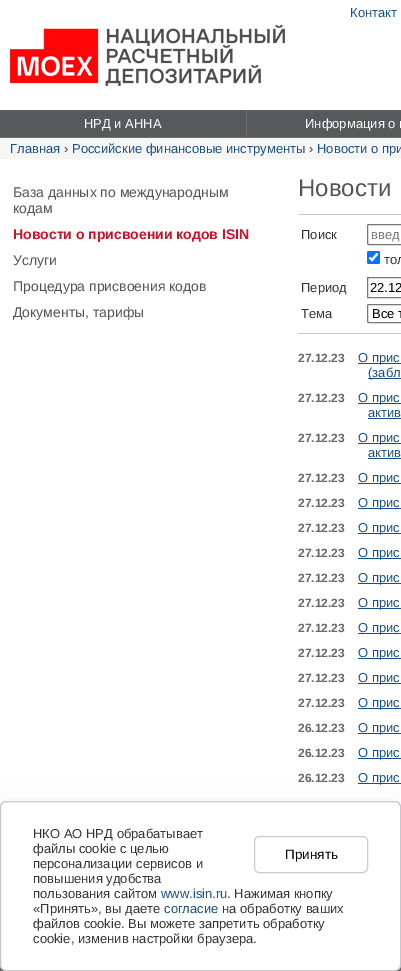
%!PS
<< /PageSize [401 971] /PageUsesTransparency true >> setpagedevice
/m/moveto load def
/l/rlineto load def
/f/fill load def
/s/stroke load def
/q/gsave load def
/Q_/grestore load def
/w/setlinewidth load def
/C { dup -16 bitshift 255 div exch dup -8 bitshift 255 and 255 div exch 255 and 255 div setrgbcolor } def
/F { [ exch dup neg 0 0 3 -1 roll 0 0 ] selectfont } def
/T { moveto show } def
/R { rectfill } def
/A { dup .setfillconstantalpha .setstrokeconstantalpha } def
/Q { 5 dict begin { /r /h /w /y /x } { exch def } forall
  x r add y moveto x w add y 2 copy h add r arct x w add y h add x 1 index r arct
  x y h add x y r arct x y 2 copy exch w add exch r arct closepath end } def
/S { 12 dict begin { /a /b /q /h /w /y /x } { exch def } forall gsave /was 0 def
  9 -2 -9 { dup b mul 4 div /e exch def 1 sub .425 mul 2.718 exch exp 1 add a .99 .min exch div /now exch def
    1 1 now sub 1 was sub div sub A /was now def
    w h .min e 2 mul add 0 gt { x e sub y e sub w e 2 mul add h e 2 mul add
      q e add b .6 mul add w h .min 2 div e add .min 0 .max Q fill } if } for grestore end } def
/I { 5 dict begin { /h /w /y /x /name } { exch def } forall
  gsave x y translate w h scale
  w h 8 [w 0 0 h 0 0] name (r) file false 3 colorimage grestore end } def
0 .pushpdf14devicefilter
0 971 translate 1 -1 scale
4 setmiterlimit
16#FFFFFF C
0 0 401 971 R
/LiberationSans-Regular 13 F
16#175089 C
(Контакт) 350 17 T
(1.rgb) 10 25 275 61 I
16#575A5A C
0 110 401 27 R
16#707070 C
0 137 401 1 R
16#FFFFFF C
(НРД и АННА) 84 128 T
16#707070 C
246 110 1 28 R
16#FFFFFF C
(Информация о к) 305 128 T
16#F6F6F6 C
0 138 401 21 R
16#175089 C
(Главная) 10 153 T
16#333333 C
(›) 64 153 T
16#175089 C
(Российские финансовые инструменты) 72 153 T
16#333333 C
(›) 309 153 T
16#175089 C
(Новости о при) 317 153 T
/LiberationSans-Regular 14 F
16#545454 C
(База данных по международным) 13 197 T
(кодам) 13 213 T
/LiberationSans-Bold 14 F
16#CE1126 C
(Новости о присвоении кодов ISIN) 13 239 T
/LiberationSans-Regular 14 F
16#545454 C
(Услуги) 13 265 T
(Процедура присвоения кодов) 13 291 T
(Документы, тарифы) 13 317 T
/LiberationSans-Regular 24 F
(Новости) 298 196 T
16#CCCCCC C
298 214 103 1 R
/LiberationSans-Regular 13 F
16#333333 C
(Поиск) 301 239 T
16#767676 C
367.5 224.5 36 20 1.5 Q s
16#757575 C
(введ) 371 239 T
16#0075FF C
367 251 13 13 2 Q f
16#FFFFFF C
2.1 w
369.5 257.5 m 2.5 2.5 l 5.5 -6.5 l s
16#333333 C
(тол) 384 264 T
(Период) 301 292 T
16#777777 C
1 w
367.5 277.5 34 20 rectstroke
16#000000 C
(22.12) 370 292 T
16#333333 C
(Тема) 301 318 T
16#767676 C
367.5 304.5 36 18 1.5 Q s
16#000000 C
(Все т) 372 318 T
16#CCCCCC C
298 333 103 1 R
/LiberationSans-Bold 12 F
16#666666 C
(27.12.23) 298 362 T
16#175089 C
358 363 43 1 R
/LiberationSans-Regular 13 F
(О прис) 358 362 T
368 378 33 1 R
(\(забл) 368 377 T
/LiberationSans-Bold 12 F
16#666666 C
(27.12.23) 298 402 T
16#175089 C
358 403 43 1 R
/LiberationSans-Regular 13 F
(О прис) 358 402 T
(актив) 368 417 T
368 418 33 1 R
/LiberationSans-Bold 12 F
16#666666 C
(27.12.23) 298 442 T
16#175089 C
358 443 43 1 R
/LiberationSans-Regular 13 F
(О прис) 358 442 T
(актив) 368 457 T
368 458 33 1 R
/LiberationSans-Bold 12 F
16#666666 C
(27.12.23) 298 482 T
16#175089 C
358 483 43 1 R
/LiberationSans-Regular 13 F
(О прис) 358 482 T
/LiberationSans-Bold 12 F
16#666666 C
(27.12.23) 298 507 T
16#175089 C
358 508 43 1 R
/LiberationSans-Regular 13 F
(О прис) 358 507 T
/LiberationSans-Bold 12 F
16#666666 C
(27.12.23) 298 532 T
16#175089 C
358 533 43 1 R
/LiberationSans-Regular 13 F
(О прис) 358 532 T
/LiberationSans-Bold 12 F
16#666666 C
(27.12.23) 298 557 T
16#175089 C
358 558 43 1 R
/LiberationSans-Regular 13 F
(О прис) 358 557 T
/LiberationSans-Bold 12 F
16#666666 C
(27.12.23) 298 582 T
16#175089 C
358 583 43 1 R
/LiberationSans-Regular 13 F
(О прис) 358 582 T
/LiberationSans-Bold 12 F
16#666666 C
(27.12.23) 298 607 T
16#175089 C
358 608 43 1 R
/LiberationSans-Regular 13 F
(О прис) 358 607 T
/LiberationSans-Bold 12 F
16#666666 C
(27.12.23) 298 632 T
16#175089 C
358 633 43 1 R
/LiberationSans-Regular 13 F
(О прис) 358 632 T
/LiberationSans-Bold 12 F
16#666666 C
(27.12.23) 298 657 T
16#175089 C
358 658 43 1 R
/LiberationSans-Regular 13 F
(О прис) 358 657 T
/LiberationSans-Bold 12 F
16#666666 C
(27.12.23) 298 682 T
16#175089 C
358 683 43 1 R
/LiberationSans-Regular 13 F
(О прис) 358 682 T
/LiberationSans-Bold 12 F
16#666666 C
(27.12.23) 298 707 T
16#175089 C
358 708 43 1 R
/LiberationSans-Regular 13 F
(О прис) 358 707 T
/LiberationSans-Bold 12 F
16#666666 C
(26.12.23) 298 732 T
16#175089 C
358 733 43 1 R
/LiberationSans-Regular 13 F
(О прис) 358 732 T
/LiberationSans-Bold 12 F
16#666666 C
(26.12.23) 298 757 T
16#175089 C
358 758 43 1 R
/LiberationSans-Regular 13 F
(О прис) 358 757 T
/LiberationSans-Bold 12 F
16#666666 C
(26.12.23) 298 782 T
16#175089 C
358 783 43 1 R
/LiberationSans-Regular 13 F
(О прис) 358 782 T
(2.rgb) 0 965 401 6 I
16#1F2229 C
0 817 401 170 6 16 .08 S
16#FFFFFF C
.5 801.5 400 169 5.5 Q q f Q_
16#C4C7CC C
s
16#333333 C
(НКО АО НРД обрабатывает) 33 838 T
(файлы сookie с целью) 33 853 T
(персонализации сервисов и) 33 868 T
(повышения удобства) 33 883 T
(пользования сайтом) 33 898 T
16#175089 C
(www.isin.ru) 161 898 T
16#333333 C
(. Нажимая кнопку) 227 898 T
(«Принять», вы даете) 33 913 T
16#175089 C
(согласие) 164 913 T
16#333333 C
(на обработку ваших) 222 913 T
(файлов cookie. Вы можете запретить обработку) 33 928 T
(сookie, изменив настройки браузера.) 33 943 T
16#CCCCCC C
254.5 836.5 113 36 4.5 Q s
/LiberationSans-Regular 13.5 F
16#000000 C
(Принять) 285 859 T
.poppdf14devicefilter showpage
